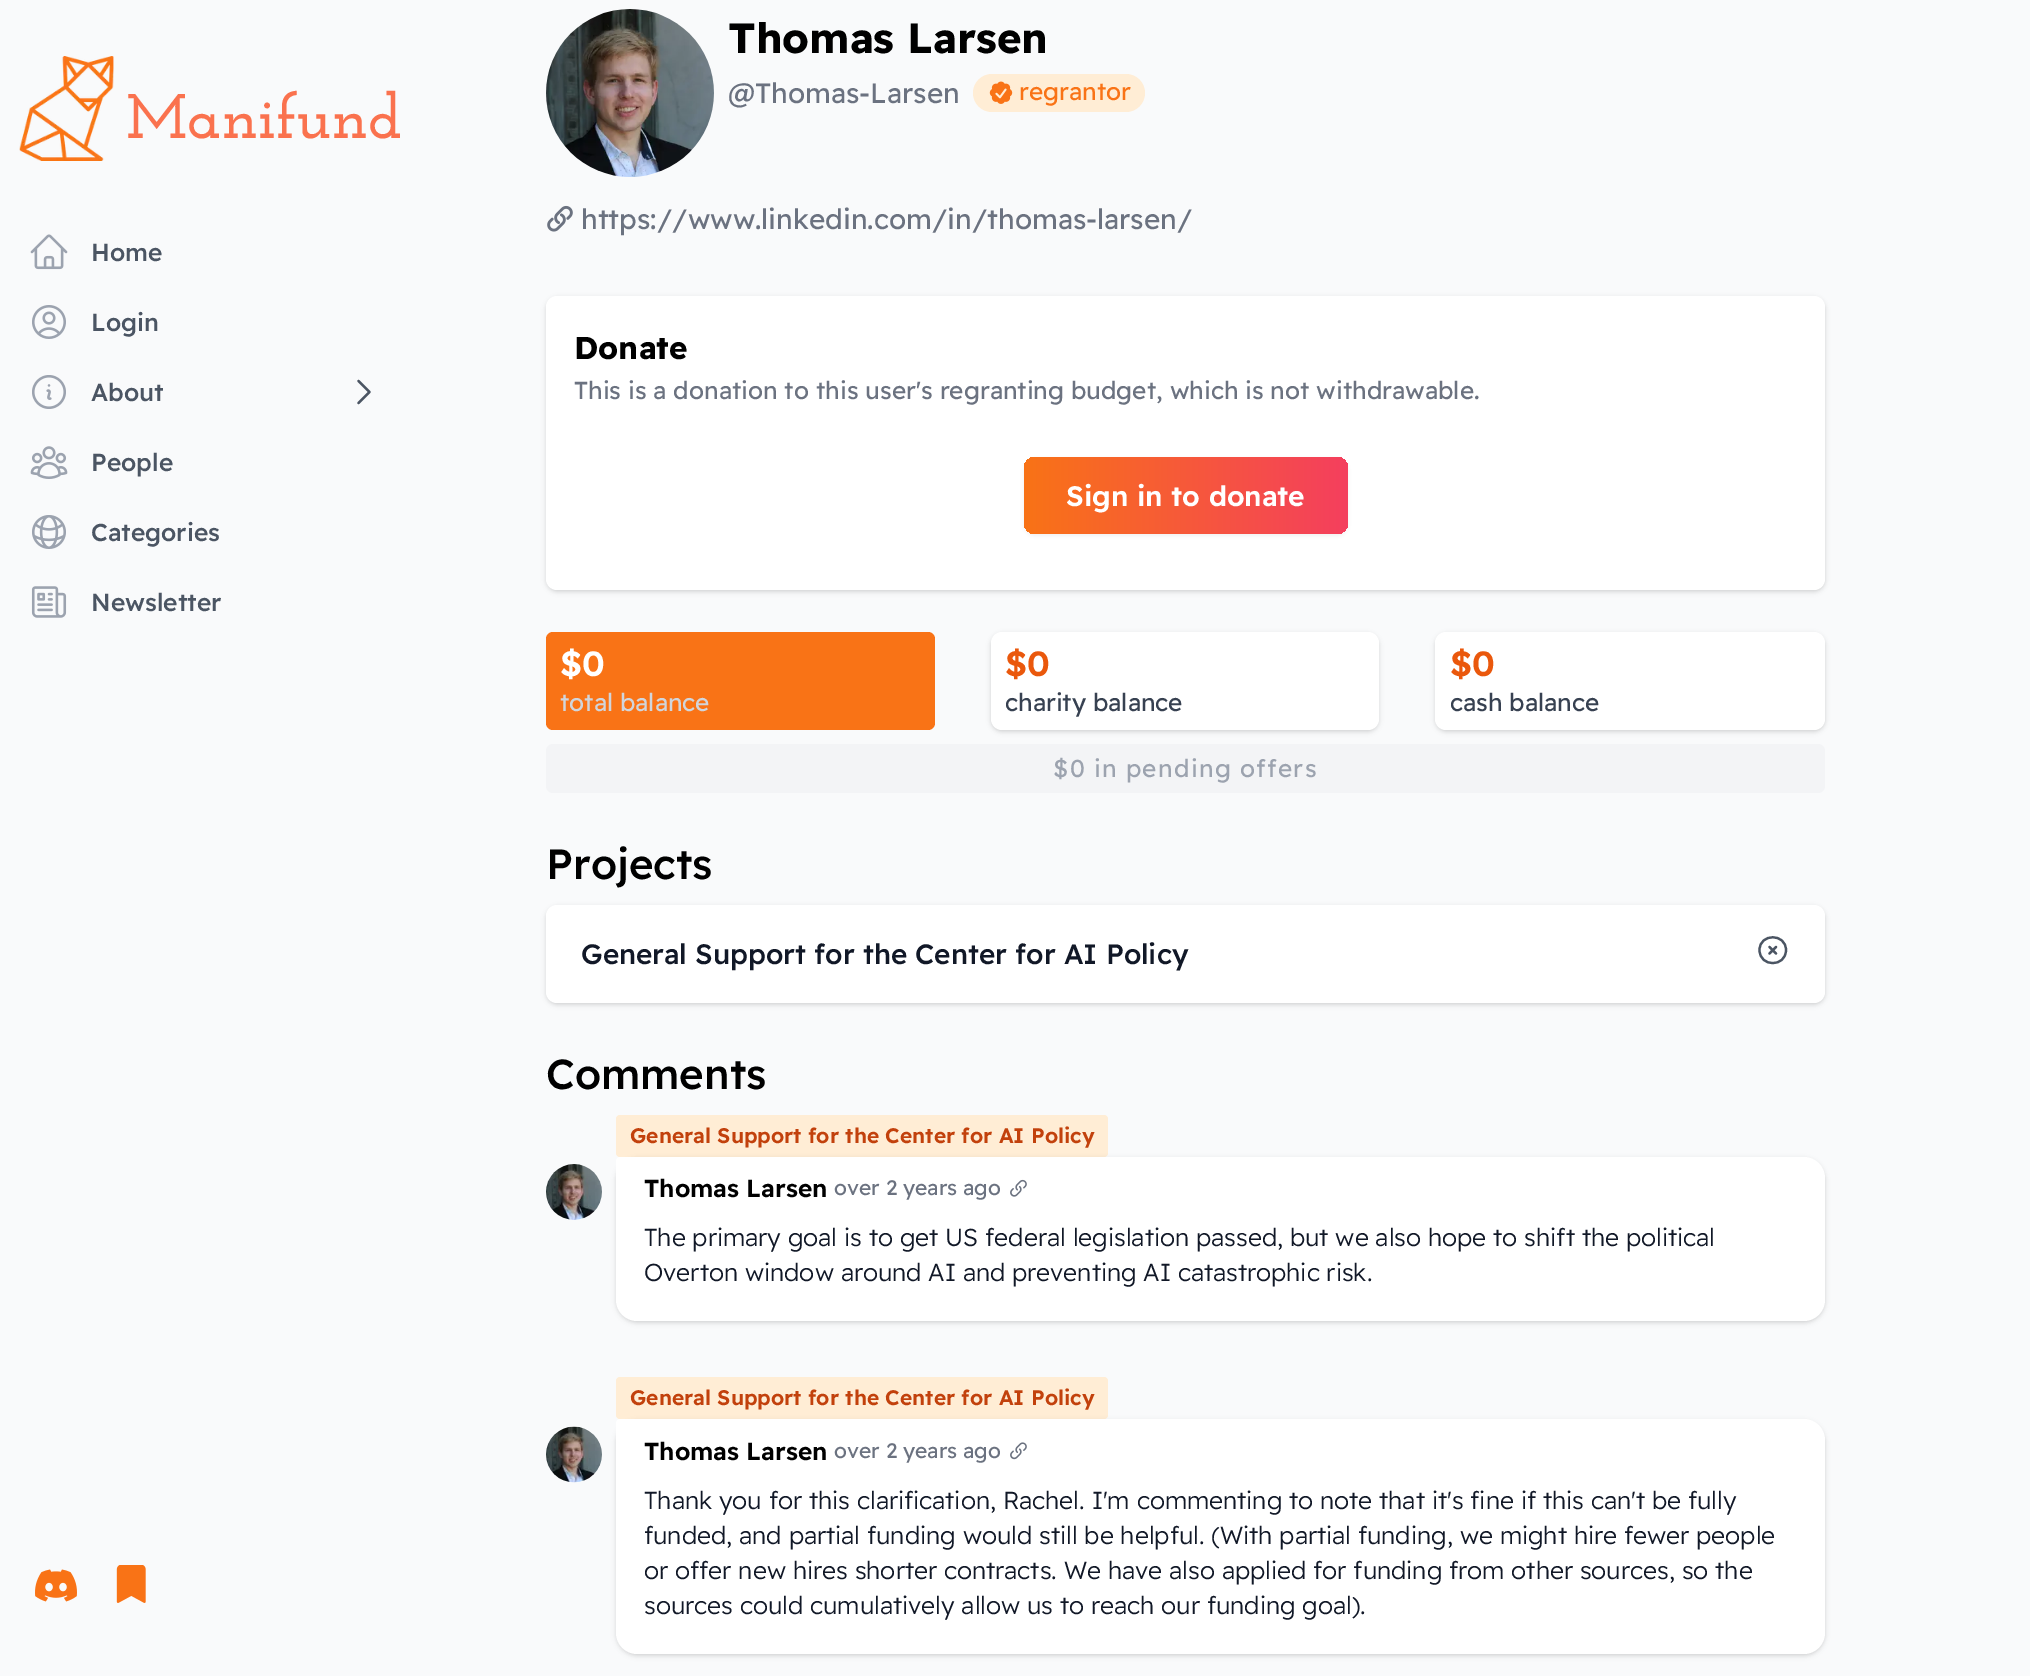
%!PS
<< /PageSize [2030 1676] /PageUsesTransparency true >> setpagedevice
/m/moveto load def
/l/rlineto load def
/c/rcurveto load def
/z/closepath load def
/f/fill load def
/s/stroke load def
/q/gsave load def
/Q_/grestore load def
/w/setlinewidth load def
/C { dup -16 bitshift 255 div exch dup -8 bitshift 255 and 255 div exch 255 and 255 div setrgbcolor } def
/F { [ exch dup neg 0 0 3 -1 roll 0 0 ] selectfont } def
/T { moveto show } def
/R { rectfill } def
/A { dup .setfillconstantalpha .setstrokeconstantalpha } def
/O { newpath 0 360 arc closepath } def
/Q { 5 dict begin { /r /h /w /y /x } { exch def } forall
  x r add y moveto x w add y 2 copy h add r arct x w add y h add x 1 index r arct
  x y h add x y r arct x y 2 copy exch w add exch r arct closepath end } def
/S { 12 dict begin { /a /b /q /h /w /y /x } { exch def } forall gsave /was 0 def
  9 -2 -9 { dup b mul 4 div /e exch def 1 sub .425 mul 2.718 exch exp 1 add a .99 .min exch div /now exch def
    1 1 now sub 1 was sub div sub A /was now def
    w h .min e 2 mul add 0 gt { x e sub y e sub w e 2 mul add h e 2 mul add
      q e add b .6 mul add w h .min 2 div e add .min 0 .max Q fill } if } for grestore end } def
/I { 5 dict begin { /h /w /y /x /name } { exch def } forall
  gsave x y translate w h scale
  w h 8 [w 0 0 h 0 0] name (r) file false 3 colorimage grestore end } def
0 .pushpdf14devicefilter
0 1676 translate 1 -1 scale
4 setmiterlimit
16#F9FAFB C
0 0 2030 1676 R
(1.rgb) 19 56 95 105 I
/JosefinSlab-SemiBold 63 F
16#FA724E C
(Manifund) 126 138 T
(2.rgb) 30 234 38 36 I
/ReadexPro-Medium 24.5 F
16#4B5563 C
(Home) 91 261 T
(3.rgb) 32 305 34 34 I
(Login) 91 331 T
(4.rgb) 32 375 34 34 I
(About) 91 401 T
2.2 w
1 setlinecap
1 setlinejoin
358.5 381 m 11 11 l -11 11 l s
(5.rgb) 30 446 38 33 I
(People) 91 471 T
(6.rgb) 32 515 34 34 I
(Categories) 91 541 T
(7.rgb) 31 586 36 32 I
(Newsletter) 91 611 T
(8.rgb) 35 1569 42 33 I
(9.rgb) 116 1565 30 38 I
16#FFFFFF C
630 93 84 O f
(10.rgb) 546 9 168 168 I
/ReadexPro-Bold 42 F
16#000000 C
(Thomas Larsen) 728 53 T
/ReadexPro-Regular 28 F
16#6B7280 C
(@Thomas-Larsen) 728 103 T
16#FFEDD5 C
973 74 172 38 19 Q f
(11.rgb) 989 81 24 23 I
/ReadexPro-Regular 24.5 F
16#F97316 C
(regrantor) 1019 100 T
(12.rgb) 547 205 26 27 I
/ReadexPro-Regular 28 F
16#6B7280 C
(https://www.linkedin.com/in/thomas-larsen/) 581 229 T
16#000000 C
548 299 1276 291 9 2 .1 S
546 298 1279 294 11 2.5 .1 S
16#FFFFFF C
546 296 1279 294 11 Q f
/ReadexPro-Bold 31.5 F
16#000000 C
(Donate) 574 359 T
/ReadexPro-Regular 24.5 F
16#6B7280 C
(This is a donation to this user's regranting budget, which is not withdrawable.) 574 399 T
16#000000 C
1024 459 324 77 11 2 .05 S
q 1024 457 324 77 11 Q clip newpath
<< /ShadingType 2 /ColorSpace /DeviceRGB /Coords [1024 495 1348 495] /Extend [true true] /Function << /FunctionType 2 /Domain [0 1] /C0 [.976 .451 .086] /C1 [.957 .247 .369] /N 1 >> >> shfill Q_
/ReadexPro-SemiBold 28 F
16#FFFFFF C
(Sign in to donate) 1066 506 T
16#F97316 C
546 632 389 98 7 Q f
/ReadexPro-SemiBold 35 F
16#FFFFFF C
($0) 560 676 T
/ReadexPro-Regular 24.5 F
16#D1D5DB C
(total balance) 560 711 T
16#000000 C
992 635 385 95 9 2 .1 S
991 634 388 98 11 2.5 .1 S
16#FFFFFF C
991 632 388 98 11 Q f
/ReadexPro-SemiBold 35 F
16#EA580C C
($0) 1005 676 T
/ReadexPro-Regular 24.5 F
16#374151 C
(charity balance) 1005 711 T
16#000000 C
1437 635 387 95 9 2 .1 S
1435 634 390 98 11 2.5 .1 S
16#FFFFFF C
1435 632 390 98 11 Q f
/ReadexPro-SemiBold 35 F
16#EA580C C
($0) 1450 676 T
/ReadexPro-Regular 24.5 F
16#374151 C
(cash balance) 1450 711 T
16#F3F4F6 C
546 744 1279 49 7 Q f
16#9CA3AF C
1053 777 m 1.25 0 ($0 in pending offers) ashow
/ReadexPro-Medium 42 F
16#000000 C
(Projects) 546 879 T
548 908 1276 95 9 2 .1 S
546 907 1279 98 11 2.5 .1 S
16#FFFFFF C
546 905 1279 98 11 Q f
/ReadexPro-Medium 28 F
16#111827 C
(General Support for the Center for AI Policy) 581 964 T
16#4B5563 C
1769.5 947 m 6.5 6.5 l 1776 947 m -6.5 6.5 l 1786 950 m 0 17.5 -26.5 17.5 -26.5 0 c 0 -17 26.5 -17 26.5 0 c z s
/ReadexPro-Medium 42 F
16#000000 C
(Comments) 546 1089 T
16#FFEDD5 C
616 1115 492 42 4 Q f
/ReadexPro-SemiBold 21 F
16#C2410C C
(General Support for the Center for AI Policy) 630 1143 T
16#FFFFFF C
574 1192 28 O f
(13.rgb) 546 1164 56 56 I
16#000000 C
618 1160 1206 161 19 2 .1 S
616 1159 1209 164 21 2.5 .1 S
16#FFFFFF C
620 1157 m 1184 0 l 11.5 0 21 9.5 21 21 c 0 122 l 0 11.5 -9.5 21 -21 21 c -1167 0 l -11.5 0 -21 -9.5 -21 -21 c 0 -139 l 0 -2 2 -4 4 -4 c z f
/ReadexPro-SemiBold 24.5 F
16#000000 C
(Thomas Larsen) 644 1197 T
/ReadexPro-Regular 21 F
16#6B7280 C
(over 2 years ago) 834 1195 T
(14.rgb) 1010 1179 17 18 I
/ReadexPro-Light 24.5 F
16#111827 C
(The primary goal is to get US federal legislation passed, but we also hope to shift the political) 644 1246 T
(Overton window around AI and preventing AI catastrophic risk.) 644 1281 T
16#FFEDD5 C
616 1377 492 42 4 Q f
/ReadexPro-SemiBold 21 F
16#C2410C C
(General Support for the Center for AI Policy) 630 1405 T
16#FFFFFF C
574 1454 28 O f
(15.rgb) 546 1426 56 57 I
16#000000 C
618 1423 1206 231 19 2 .1 S
616 1421 1209 235 21 2.5 .1 S
16#FFFFFF C
620 1419 m 1184 0 l 11.5 0 21 9.5 21 21 c 0 193 l 0 11.5 -9.5 21 -21 21 c -1167 0 l -11.5 0 -21 -9.5 -21 -21 c 0 -210 l 0 -2 2 -4 4 -4 c z f
/ReadexPro-SemiBold 24.5 F
16#000000 C
(Thomas Larsen) 644 1460 T
/ReadexPro-Regular 21 F
16#6B7280 C
(over 2 years ago) 834 1458 T
(16.rgb) 1010 1442 17 18 I
/ReadexPro-Light 24.5 F
16#111827 C
(Thank you for this clarification, Rachel. I'm commenting to note that it's fine if this can't be fully) 644 1509 T
(funded, and partial funding would still be helpful. \(With partial funding, we might hire fewer people) 644 1544 T
(or offer new hires shorter contracts. We have also applied for funding from other sources, so the) 644 1579 T
(sources could cumulatively allow us to reach our funding goal\).) 644 1614 T
.poppdf14devicefilter showpage
